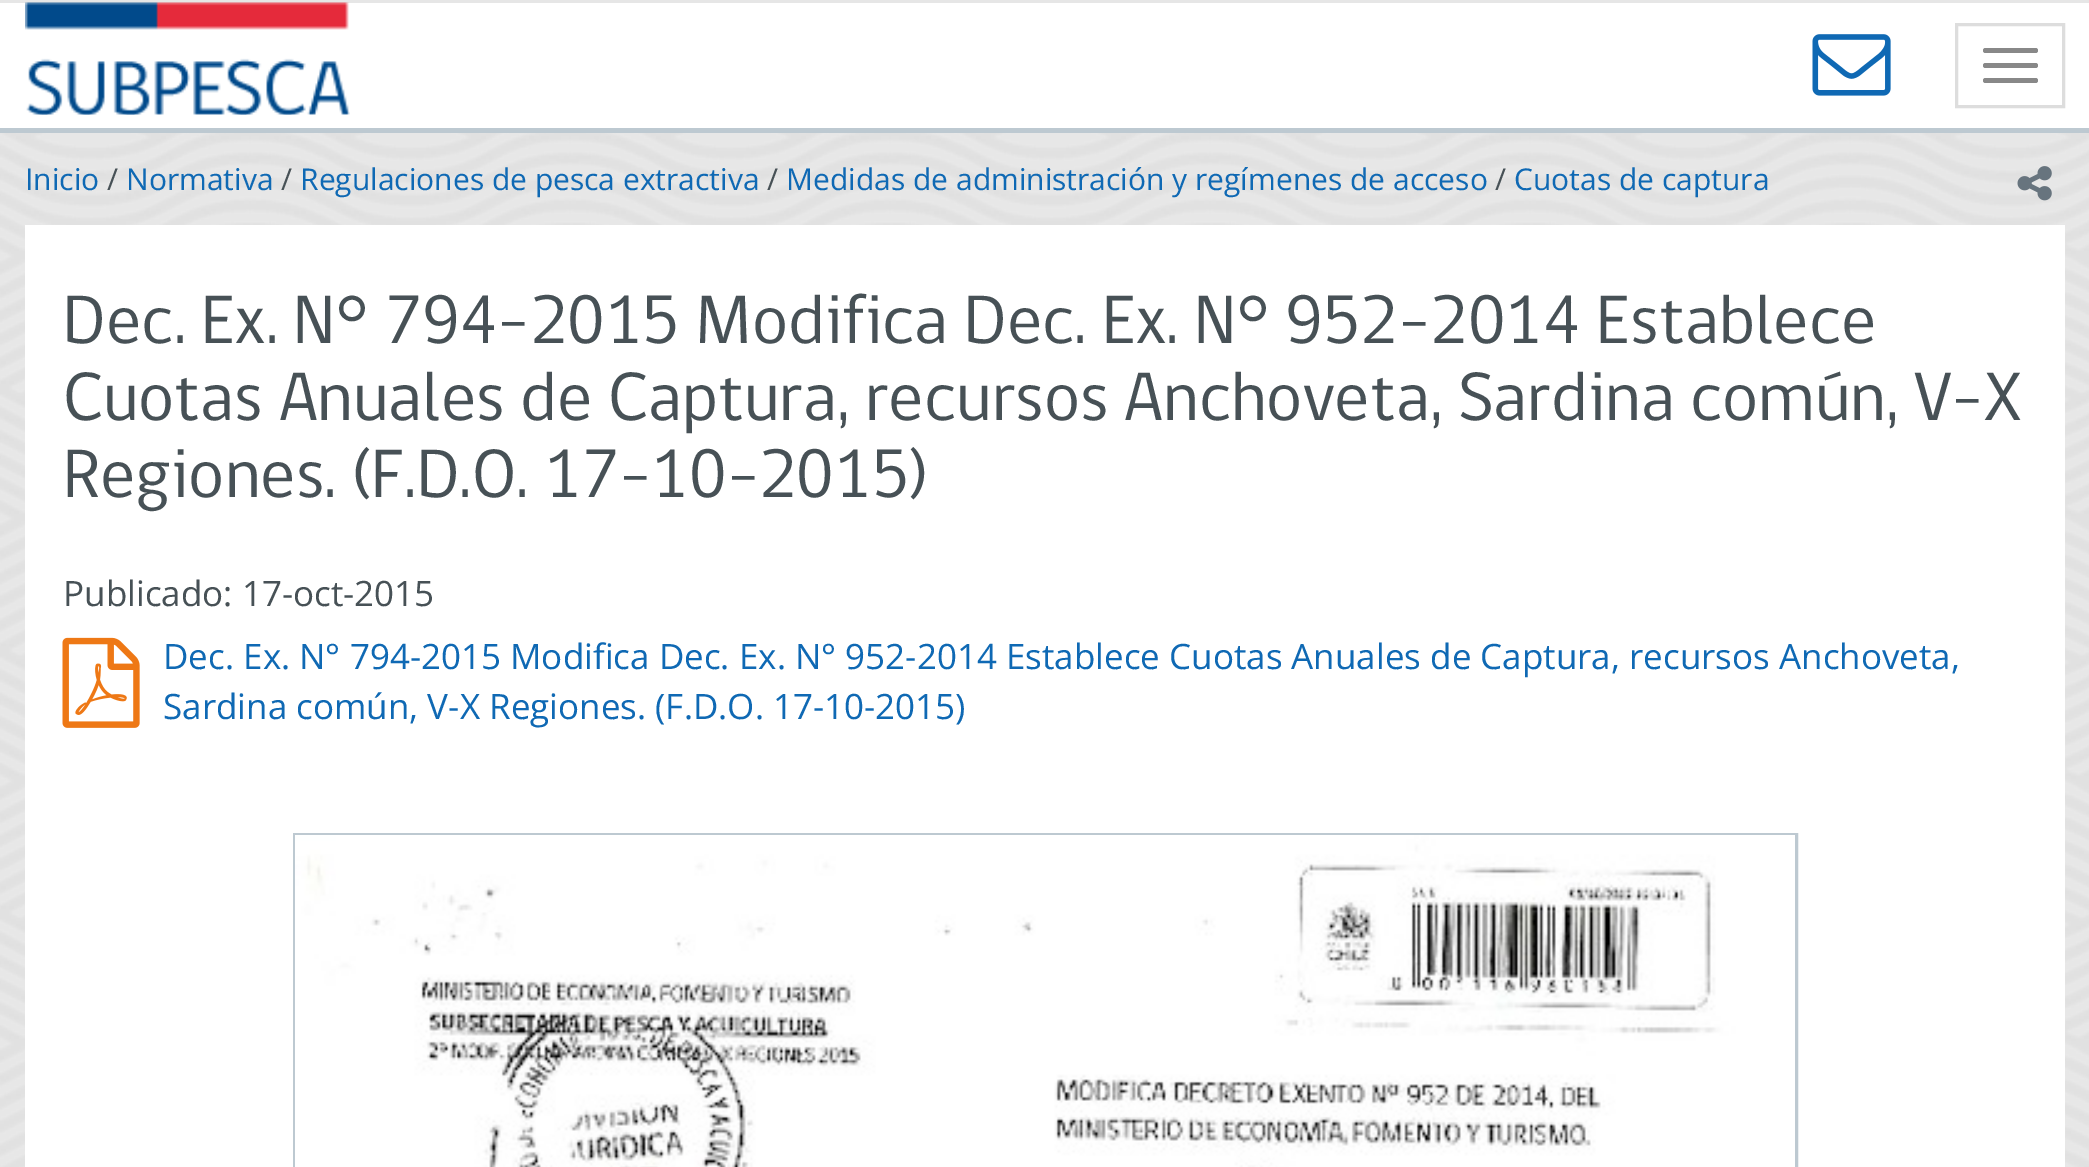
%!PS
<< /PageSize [2089 1167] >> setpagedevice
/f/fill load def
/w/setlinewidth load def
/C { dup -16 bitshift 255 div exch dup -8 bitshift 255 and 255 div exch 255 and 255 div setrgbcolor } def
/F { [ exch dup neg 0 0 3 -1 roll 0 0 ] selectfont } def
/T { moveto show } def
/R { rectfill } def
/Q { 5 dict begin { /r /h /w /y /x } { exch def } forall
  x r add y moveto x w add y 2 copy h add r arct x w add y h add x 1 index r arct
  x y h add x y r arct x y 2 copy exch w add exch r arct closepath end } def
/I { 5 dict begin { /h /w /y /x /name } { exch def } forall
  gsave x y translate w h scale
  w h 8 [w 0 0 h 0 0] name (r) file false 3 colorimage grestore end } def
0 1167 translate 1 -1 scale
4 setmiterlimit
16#E6E6E6 C
0 0 2089 1167 R
(1.rgb) 0 133 2089 1034 I
16#FFFFFF C
0 3 2089 125 R
16#BDC9D1 C
0 128 2089 5 R
(2.rgb) 25 2 325 113 I
16#DDDDDD C
3 w
1956.5 24.5 107 82 rectstroke
16#888888 C
1983 48 55 5 2.5 Q f
1983 63 55 5 2.5 Q f
1983 78 55 5 2.5 Q f
(3.rgb) 1812 34 79 62 I
/OpenSans-Regular 30 F
16#0F69B4 C
(Inicio) 25 190 T
16#475156 C
(/) 107 190 T
16#0F69B4 C
(Normativa) 126 190 T
16#475156 C
(/) 281 190 T
16#0F69B4 C
(Regulaciones de pesca extractiva) 300 190 T
16#475156 C
(/) 767 190 T
16#0F69B4 C
(Medidas de administración y regímenes de acceso) 786 190 T
16#475156 C
(/) 1495 190 T
16#0F69B4 C
(Cuotas de captura) 1514 190 T
(4.rgb) 2017 166 35 35 I
16#FFFFFF C
25 225 2040 942 R
/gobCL-Regular 70 F
16#475156 C
(Dec. Ex. N° 794-2015 Modifica Dec. Ex. N° 952-2014 Establece) 63 343 T
(Cuotas Anuales de Captura, recursos Anchoveta, Sardina común, V-X) 63 420 T
(Regiones. \(F.D.O. 17-10-2015\)) 63 497 T
/OpenSans-Regular 35 F
(Publicado: 17-oct-2015) 63 606 T
(5.rgb) 62 637 78 91 I
16#0F69B4 C
(Dec. Ex. N° 794-2015 Modifica Dec. Ex. N° 952-2014 Establece Cuotas Anuales de Captura, recursos Anchoveta,) 163 669 T
(Sardina común, V-X Regiones. \(F.D.O. 17-10-2015\)) 163 719 T
16#BDC9D1 C
294.5 834.5 1502 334 rectstroke
(6.rgb) 295 835 1500 332 I
showpage
